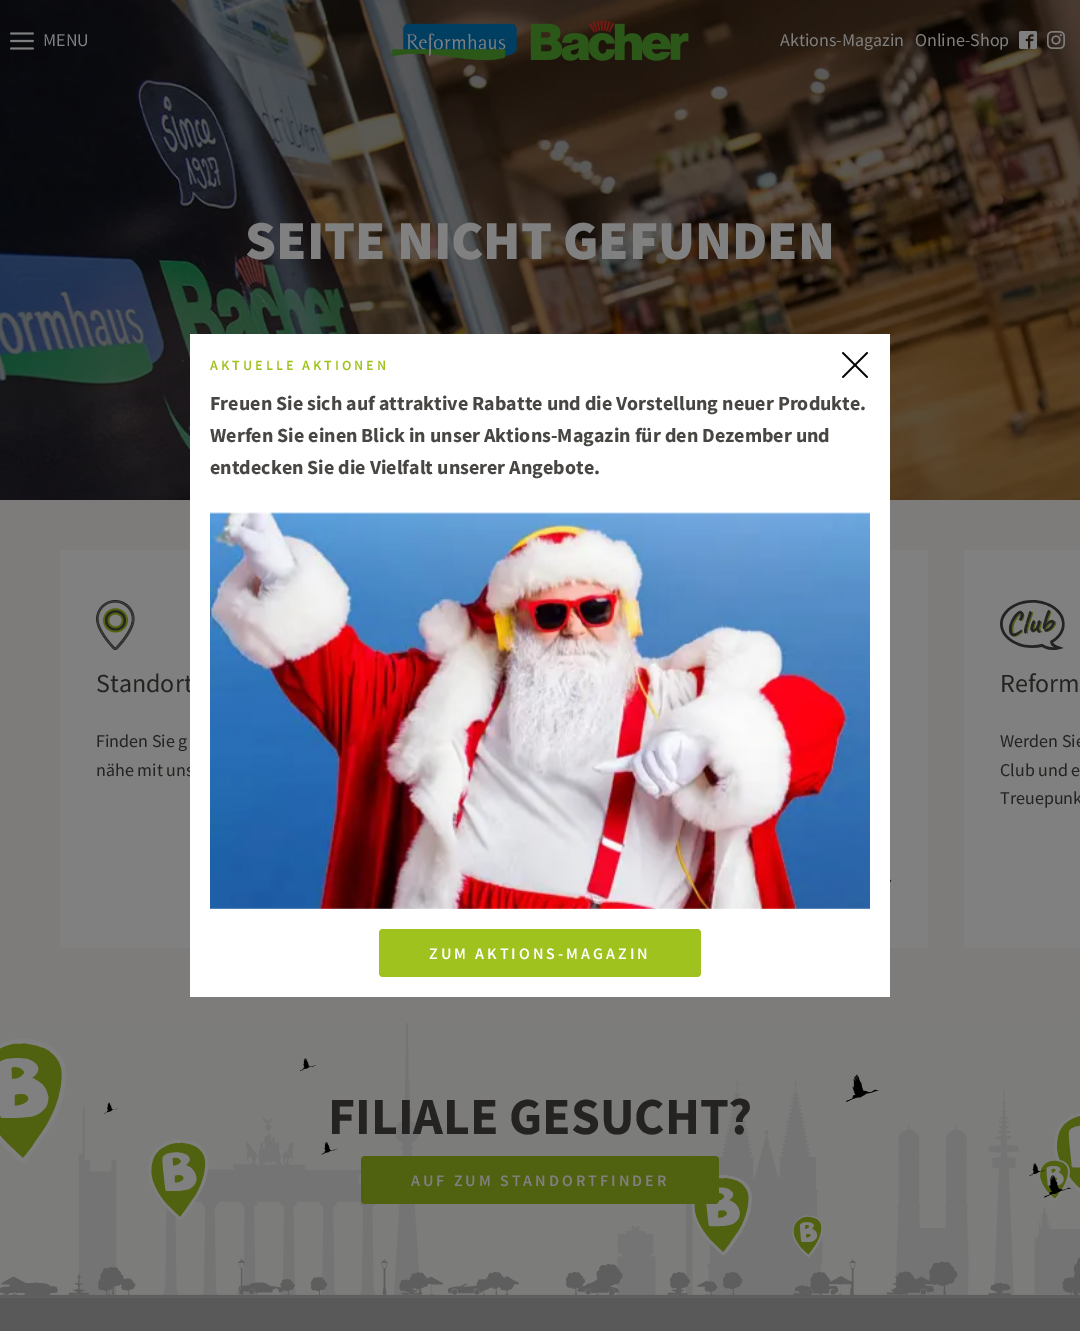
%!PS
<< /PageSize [1080 1331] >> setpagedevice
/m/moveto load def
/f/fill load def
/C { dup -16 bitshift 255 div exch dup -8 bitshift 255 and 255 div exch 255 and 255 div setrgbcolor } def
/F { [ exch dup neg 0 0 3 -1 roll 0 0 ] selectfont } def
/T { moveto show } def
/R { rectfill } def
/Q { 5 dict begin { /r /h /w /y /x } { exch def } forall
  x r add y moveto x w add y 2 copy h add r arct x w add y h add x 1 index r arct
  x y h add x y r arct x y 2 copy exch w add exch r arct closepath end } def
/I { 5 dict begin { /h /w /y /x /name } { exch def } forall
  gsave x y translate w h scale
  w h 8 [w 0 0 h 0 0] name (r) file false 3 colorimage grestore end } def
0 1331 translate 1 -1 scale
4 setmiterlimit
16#7D7C7B C
0 0 1080 1331 R
(5.rgb) 0 0 1080 500 I
(1.rgb) 10 32 24 18 I
/SourceSansPro-Regular 18 F
16#808080 C
(MENU) 43 46 T
(2.rgb) 392 20 297 41 I
(Aktions-Magazin) 780 46 T
(Online-Shop) 915 46 T
(3.rgb) 1019 31 18 18 I
(4.rgb) 1047 31 18 18 I
/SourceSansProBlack-Black 55 F
(SEITE NICHT GEFUNDEN) 245 259 T
60 550 130 398 R
(6.rgb) 96 600 39 50 I
/SourceSansPro-Regular 26 F
16#242321 C
(Standort) 96 692 T
/SourceSansPro-Regular 18 F
(Finden Sie g) 96 747 T
(nähe mit uns) 96 776 T
16#808080 C
890 550 38 398 R
(7.rgb) 890 879 1 4 I
964 550 116 398 R
(8.rgb) 1000 600 65 50 I
/SourceSansPro-Regular 26 F
16#242321 C
(Reform) 1000 692 T
/SourceSansPro-Regular 18 F
(Werden Sie) 1000 747 T
(Club und e) 1000 776 T
(Treuepunk) 1000 804 T
16#FFFFFF C
190 334 700 663 R
/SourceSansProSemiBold-SemiBold 14 F
16#9FC21F C
210 370 m 3 0 (AKTUELLE AKTIONEN) ashow
(9.rgb) 842 352 26 26 I
/SourceSansPro-Bold 20 F
16#474642 C
(Freuen Sie sich auf attraktive Rabatte und die Vorstellung neuer Produkte.) 210 410 T
(Werfen Sie einen Blick in unser Aktions-Magazin für den Dezember und) 210 442 T
(entdecken Sie die Vielfalt unserer Angebote.) 210 474 T
(10.rgb) 210 512 660 397 I
16#9FC21F C
379 929 322 48 4 Q f
/SourceSansProSemiBold-SemiBold 16 F
16#FFFFFF C
429 959 m 3 0 (ZUM AKTIONS-MAGAZIN) ashow
(11.rgb) 0 1023 1080 275 I
/SourceSansPro-Bold 52 F
16#242321 C
(FILIALE GESUCHT?) 328 1134 T
16#506110 C
361 1156 358 48 4 Q f
/SourceSansProSemiBold-SemiBold 16 F
16#808080 C
411 1186 m 3 0 (AUF ZUM STANDORTFINDER) ashow
16#595959 C
0 1298 1080 33 R
showpage
